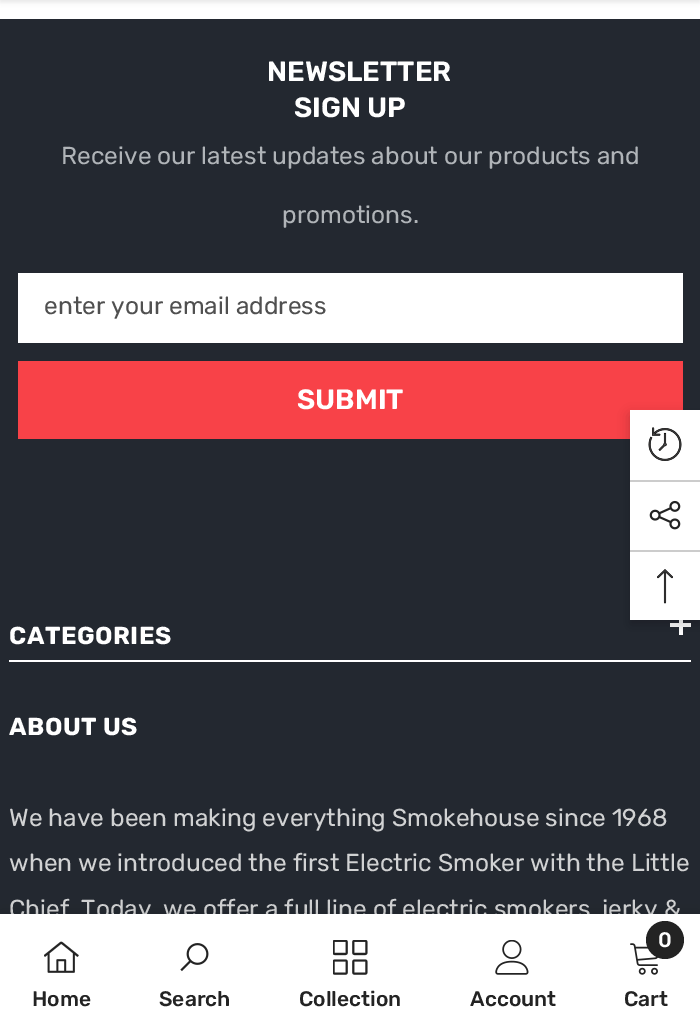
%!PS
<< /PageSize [700 1029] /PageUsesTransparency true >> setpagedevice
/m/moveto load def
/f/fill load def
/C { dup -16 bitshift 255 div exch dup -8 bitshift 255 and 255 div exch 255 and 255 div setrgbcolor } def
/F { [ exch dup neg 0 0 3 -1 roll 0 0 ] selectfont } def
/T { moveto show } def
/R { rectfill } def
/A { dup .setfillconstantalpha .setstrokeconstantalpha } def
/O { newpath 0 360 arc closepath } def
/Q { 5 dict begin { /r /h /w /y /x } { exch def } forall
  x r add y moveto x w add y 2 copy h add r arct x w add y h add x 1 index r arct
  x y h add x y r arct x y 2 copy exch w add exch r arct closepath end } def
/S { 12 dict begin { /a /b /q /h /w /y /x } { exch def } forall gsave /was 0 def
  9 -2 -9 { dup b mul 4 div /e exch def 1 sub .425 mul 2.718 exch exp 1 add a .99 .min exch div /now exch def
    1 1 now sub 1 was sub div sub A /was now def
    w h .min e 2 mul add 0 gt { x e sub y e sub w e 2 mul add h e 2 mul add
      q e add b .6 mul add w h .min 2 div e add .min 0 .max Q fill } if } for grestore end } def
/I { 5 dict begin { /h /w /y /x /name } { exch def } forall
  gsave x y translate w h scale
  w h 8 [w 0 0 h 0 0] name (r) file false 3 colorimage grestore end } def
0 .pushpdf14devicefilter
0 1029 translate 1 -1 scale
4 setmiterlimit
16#FFFFFF C
0 0 700 1029 R
16#000000 C
0 -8 700 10 0 2.5 .1 S
16#232830 C
0 19 700 895 R
/Rubik-SemiBold 28 F
16#FFFFFF C
(NEWSLETTER) 267 81 T
(SIGN UP) 294 117 T
/Rubik-Regular 24.5 F
16#B0B4B8 C
(Receive our latest updates about our products and) 61 164 T
(promotions.) 282 223 T
16#FFFFFF C
18 273 665 70 R
16#505050 C
(enter your email address) 44 314 T
16#F84248 C
18 361 665 78 R
/Rubik-SemiBold 28 F
16#FFFFFF C
(SUBMIT) 297 409 T
9 660 682 2 R
679 614 4 21 R
670 623 21 4 R
/Rubik-Bold 24.5 F
9 644 m .5 0 (CATEGORIES) ashow
9 735 m .5 0 (ABOUT US) ashow
/Rubik-Regular 24.5 F
16#D1D2D3 C
(We have been making everything Smokehouse since 1968) 9 826 T
(when we introduced the first Electric Smoker with the Little) 9 871 T
(Chief. Today, we offer a full line of electric smokers, jerky &) 9 917 T
16#000000 C
0 914 700 115 0 8 .12 S
16#FFFFFF C
0 914 700 115 R
(1.rgb) 44 941 35 32 I
/Rubik-Medium 21 F
16#232323 C
(Home) 32 1006 T
(2.rgb) 180 943 29 29 I
(Search) 159 1006 T
(3.rgb) 333 940 35 35 I
(Collection) 299 1006 T
(4.rgb) 495 940 34 35 I
(Account) 470 1006 T
(5.rgb) 630 943 28 32 I
665 940 19 O f
16#FFFFFF C
(0) 658 947 T
16#232323 C
(Cart) 624 1006 T
16#000000 C
630 415 70 210 0 6 .2 S
16#FFFFFF C
630 410 70 210 R
(6.rgb) 648 427 34 34 I
16#CCCCCC C
630 480 70 2 R
(7.rgb) 649 500 32 30 I
630 550 70 2 R
(8.rgb) 657 569 16 35 I
.poppdf14devicefilter showpage
